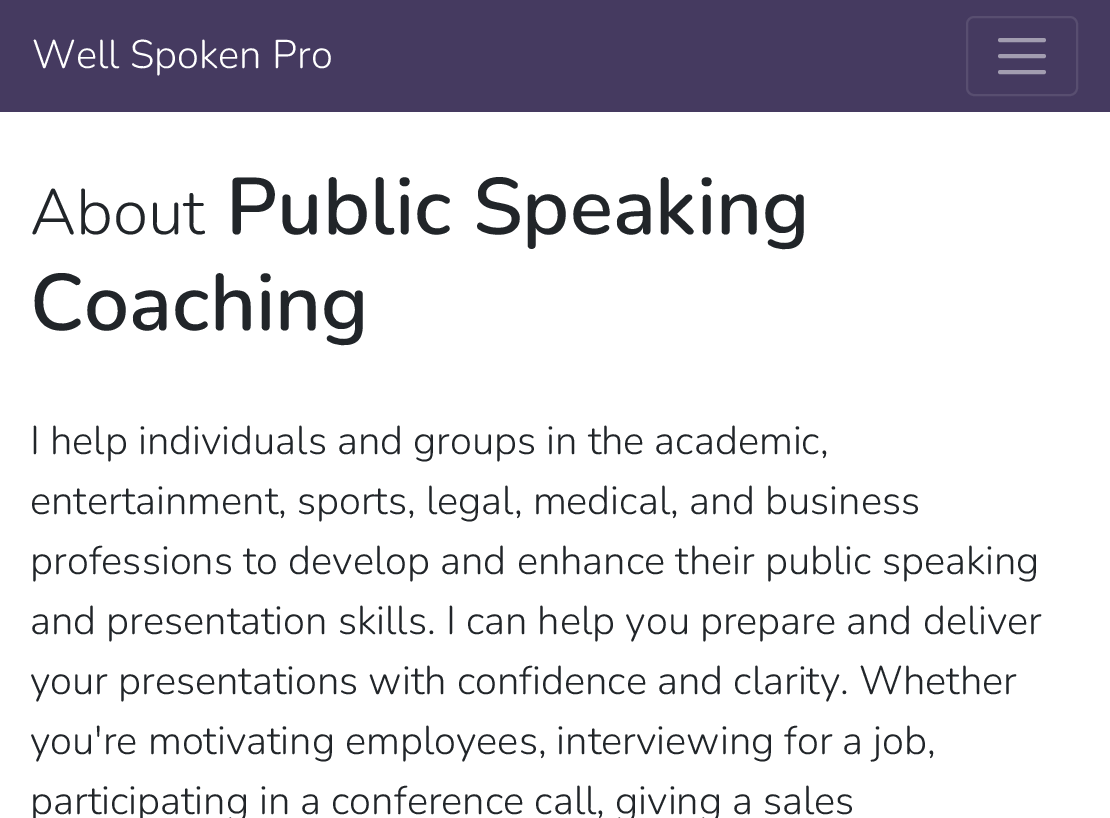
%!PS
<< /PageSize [1110 818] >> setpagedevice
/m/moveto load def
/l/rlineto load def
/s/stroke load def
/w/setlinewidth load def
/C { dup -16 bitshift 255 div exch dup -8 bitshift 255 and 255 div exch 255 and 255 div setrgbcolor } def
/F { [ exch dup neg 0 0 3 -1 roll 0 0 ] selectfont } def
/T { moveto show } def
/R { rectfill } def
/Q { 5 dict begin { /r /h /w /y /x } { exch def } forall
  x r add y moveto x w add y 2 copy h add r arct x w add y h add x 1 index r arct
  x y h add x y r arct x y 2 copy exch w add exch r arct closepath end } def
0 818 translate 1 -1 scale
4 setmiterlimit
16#FFFFFF C
0 0 1110 818 R
16#453A60 C
0 0 1110 112 R
/Nunito-Light 40 F
16#FFFFFF C
(Well Spoken Pro) 32 68 T
16#584E70 C
2 w
967 17 110 78 7 Q s
16#A29DB0 C
4 w
1 setlinecap
1000 40 m 44 0 l 1000 56 m 44 0 l 1000 72 m 44 0 l s
/Nunito-Light 64 F
16#212529 C
(About) 30 234 T
/Nunito-SemiBold 80 F
(Public Speaking) 226 234 T
(Coaching) 30 330 T
/Nunito-Light 40 F
(I help individuals and groups in the academic,) 30 454 T
(entertainment, sports, legal, medical, and business) 30 514 T
(professions to develop and enhance their public speaking) 30 574 T
(and presentation skills. I can help you prepare and deliver) 30 634 T
(your presentations with confidence and clarity. Whether) 30 694 T
(you're motivating employees, interviewing for a job,) 30 754 T
(participating in a conference call, giving a sales) 30 814 T
showpage
